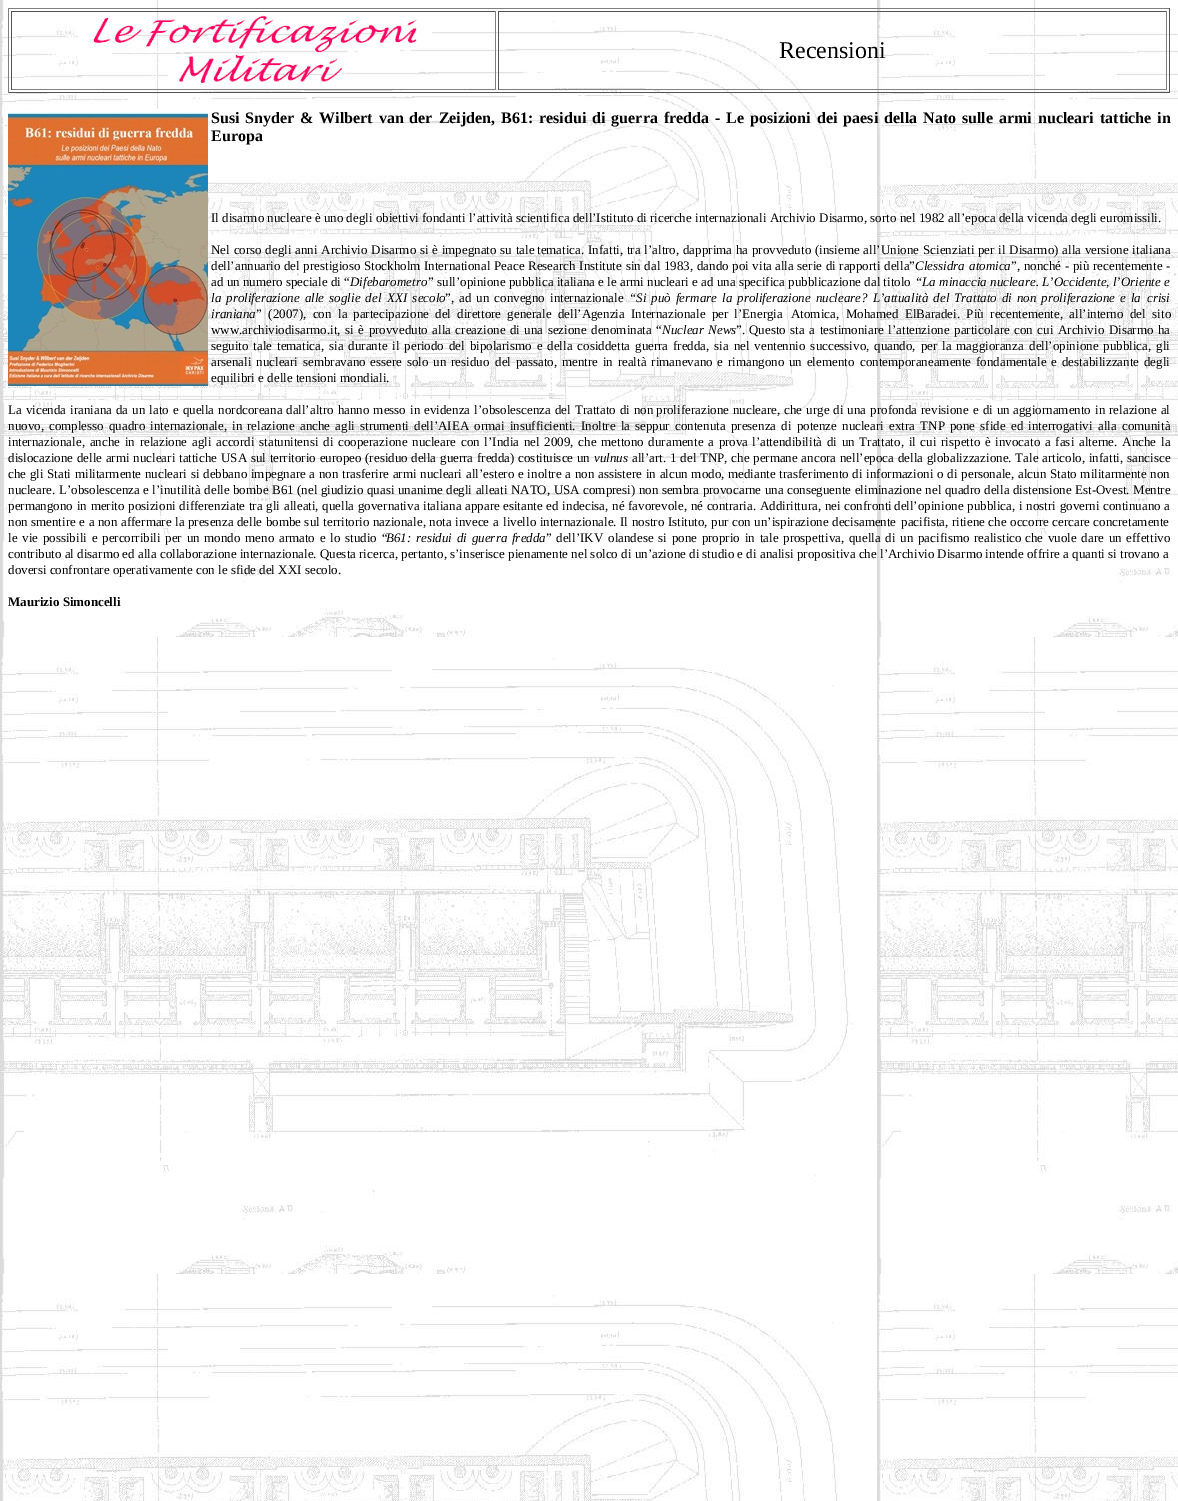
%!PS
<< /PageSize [1178 1501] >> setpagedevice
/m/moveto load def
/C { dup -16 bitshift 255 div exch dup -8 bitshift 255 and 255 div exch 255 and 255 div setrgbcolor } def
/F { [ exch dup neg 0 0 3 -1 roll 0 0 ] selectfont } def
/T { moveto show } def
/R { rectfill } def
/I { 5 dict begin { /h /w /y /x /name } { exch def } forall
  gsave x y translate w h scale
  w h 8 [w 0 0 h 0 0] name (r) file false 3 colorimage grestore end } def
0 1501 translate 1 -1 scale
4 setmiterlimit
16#FFFFFF C
0 0 1178 1501 R
(1.rgb) 0 0 1178 1501 I
16#808080 C
8 8 1162 1 R
16#555555 C
1169 8 1 85 R
8 92 1162 1 R
16#808080 C
8 8 1 85 R
16#555555 C
11 11 485 1 R
16#808080 C
495 11 1 79 R
11 89 485 1 R
16#555555 C
11 11 1 79 R
(2.rgb) 93 15 324 68 I
498 11 669 1 R
16#808080 C
1166 11 1 79 R
498 89 669 1 R
16#555555 C
498 11 1 79 R
/LiberationSerif-Regular 24 F
16#000000 C
(Recensioni) 779 58 T
(3.rgb) 8 109 200 277 I
/LiberationSerif-Bold 16 F
(Susi) 211 123 T
245 123 m 2 0 32 (Snyder & Wilbert van der Zeijden, B61: residui di guerra fredda - Le posizioni) widthshow
817 123 m 2 0 32 (dei paesi della Nato sulle armi nucleari tattiche in) widthshow
(Europa) 211 141 T
/LiberationSerif-Regular 13 F
(Il disarmo nucleare è uno degli obiettivi fondanti l’attività scientifica dell’Istituto di ricerche internazionali Archivio Disarmo, sorto nel 1982 all’epoca della vicenda degli euromissili.) 211 222 T
211 254 m .5 0 32 (Nel corso degli anni Archivio Disarmo si è impegnato su tale) widthshow
537 254 m .5 0 32 (tematica. Infatti, tra l’altro, dapprima ha provveduto \(insieme all’Unione) widthshow
923 254 m .5 0 32 (Scienziati per il Disarmo\) alla versione italiana) widthshow
211 270 m .4 0 32 (dell’annuario del prestigioso) widthshow
364 270 m .4 0 32 (Stockholm International Peace Research Institute sin dal 1983, dando poi vita) widthshow
775 270 m .4 0 32 (alla serie di rapporti della”) widthshow
/LiberationSerif-Italic 13 F
(Clessidra) 915 270 T
(atomica) 969 270 T
/LiberationSerif-Regular 13 F
1011 270 m .4 0 32 (”, nonché - più recentemente -) widthshow
(ad un numero speciale di “) 211 286 T
/LiberationSerif-Italic 13 F
(Difebarometro) 350 286 T
/LiberationSerif-Regular 13 F
(” sull’opinione pubblica italiana e le armi nucleari e ad una specifica pubblicazione dal titolo) 428 286 T
/LiberationSerif-Italic 13 F
(“La minaccia nucleare. L’Occidente, l’Oriente e) 915 286 T
211 302 m 1.75 0 32 (la proliferazione alle soglie del) widthshow
387 302 m 2 0 32 (XXI secolo) widthshow
/LiberationSerif-Regular 13 F
445 302 m 1.75 0 32 (”, ad un convegno) widthshow
(internazionale) 550 302 T
/LiberationSerif-Italic 13 F
629 302 m 1.75 0 32 (“Si può fermare la) widthshow
737 302 m 1.75 0 32 (proliferazione nucleare? L’attualità del Trattato di non proliferazione e la) widthshow
(crisi) 1147 302 T
(iraniana) 211 318 T
/LiberationSerif-Regular 13 F
256 318 m 3.25 0 32 (” \(2007\), con la) widthshow
353 318 m 3 0 32 (partecipazione del direttore generale dell’Agenzia Internazionale per l’Energia) widthshow
791 318 m 3.25 0 32 (Atomica, Mohamed ElBaradei. Più recentemente, all’interno del sito) widthshow
211 334 m 1.25 0 32 (www.archiviodisarmo.it, si è provveduto alla creazione di una sezione denominata) widthshow
(“) 656 334 T
/LiberationSerif-Italic 13 F
662 334 m 1 0 32 (Nuclear News) widthshow
/LiberationSerif-Regular 13 F
(”.) 736 334 T
749 334 m 1.25 0 32 (Questo sta a testimoniare l’attenzione particolare con cui Archivio Disarmo ha) widthshow
211 350 m 1.6 0 32 (seguito tale tematica, sia durante il periodo del bipolarismo e della cosiddetta) widthshow
635 350 m 1.6 0 32 (guerra fredda, sia nel ventennio successivo, quando, per la maggioranza) widthshow
1029 350 m 1.6 0 32 (dell’opinione pubblica, gli) widthshow
211 366 m 1.5 0 32 (arsenali nucleari sembravano essere solo un residuo) widthshow
495 366 m 1.5 0 32 (del passato, mentre in realtà rimanevano e rimangono un elemento) widthshow
860 366 m 1.5 0 32 (contemporaneamente fondamentale e destabilizzante degli) widthshow
(equilibri e delle tensioni mondiali.) 211 382 T
8 414 m .75 0 32 (La vicenda iraniana da un lato e quella nordcoreana) widthshow
286 414 m .75 0 32 (dall’altro hanno messo in evidenza l’obsolescenza del Trattato di non) widthshow
656 414 m .75 0 32 (proliferazione nucleare, che urge di una profonda revisione e di un) widthshow
1013 414 m .75 0 32 (aggiornamento in relazione al) widthshow
8 430 m 1.9 0 32 (nuovo, complesso quadro internazionale, in) widthshow
247 430 m 1.9 0 32 (relazione anche agli strumenti dell’AIEA ormai insufficienti. Inoltre la seppur) widthshow
675 430 m 1.9 0 32 (contenuta presenza di potenze nucleari extra TNP pone sfide ed interrogativi) widthshow
1098 430 m 1.9 0 32 (alla comunità) widthshow
8 446 m 1.5 0 32 (internazionale, anche in relazione agli accordi statunitensi di) widthshow
338 446 m 1.5 0 32 (cooperazione nucleare con l’India nel 2009, che mettono duramente a prova) widthshow
752 446 m 1.5 0 32 (l’attendibilità di un Trattato, il cui rispetto è invocato a fasi alterne. Anche) widthshow
(la) 1161 446 T
8 462 m .5 0 32 (dislocazione delle armi nucleari tattiche USA sul territorio europeo \(residuo) widthshow
411 462 m .5 0 32 (della guerra fredda\) costituisce un) widthshow
/LiberationSerif-Italic 13 F
(vulnus) 594 462 T
/LiberationSerif-Regular 13 F
632 462 m .5 0 32 (all’art. 1 del TNP, che) widthshow
753 462 m .5 0 32 (permane ancora nell’epoca della globalizzazione. Tale articolo, infatti,) widthshow
(sancisce) 1127 462 T
8 478 m .5 0 32 (che gli Stati militarmente nucleari si debbano impegnare a non) widthshow
342 478 m .5 0 32 (trasferire armi nucleari all’estero e inoltre a non assistere in alcun modo,) widthshow
728 478 m .5 0 32 (mediante trasferimento di informazioni o di personale, alcun Stato militarmente) widthshow
(non) 1150 478 T
8 494 m .25 0 32 (nucleare. L’obsolescenza e l’inutilità delle bombe B61 \(nel giudizio quasi unanime degli alleati NATO, USA compresi\) non sembra provocarne una conseguente eliminazione nel quadro della distensione Est-Ovest. Mentre) widthshow
8 510 m .5 0 32 (permangono in merito) widthshow
128 510 m .5 0 32 (posizioni differenziate tra gli alleati, quella governativa italiana appare) widthshow
503 510 m .5 0 32 (esitante ed indecisa, né favorevole, né contraria. Addirittura, nei confronti) widthshow
894 510 m .5 0 32 (dell’opinione pubblica, i nostri governi continuano a) widthshow
8 526 m .25 0 32 (non smentire e a non) widthshow
121 526 m .25 0 32 (affermare la presenza delle bombe sul territorio nazionale, nota invece a) widthshow
503 526 m .25 0 32 (livello internazionale. Il nostro Istituto, pur con un’ispirazione decisamente) widthshow
901 526 m .25 0 32 (pacifista, ritiene che occorre cercare concretamente) widthshow
8 542 m 1.5 0 32 (le vie possibili e) widthshow
102 542 m 1.5 0 32 (percorribili per un mondo meno armato e lo studio “) widthshow
/LiberationSerif-Italic 13 F
(B61:) 386 542 T
416 542 m 1.5 0 32 (residui di guerra fredda) widthshow
/LiberationSerif-Regular 13 F
546 542 m 1 0 32 (” dell’IKV) widthshow
608 542 m 1.5 0 32 (olandese si pone proprio in tale prospettiva, quella di un pacifismo realistico) widthshow
1025 542 m 1.5 0 32 (che vuole dare un effettivo) widthshow
(contributo al disarmo ed alla collaborazione internazionale. Questa ricerca, pertanto, s’inserisce pienamente nel solco di un’azione di studio e di analisi propositiva che l’Archivio Disarmo intende offrire a quanti si trovano a) 8 558 T
(doversi confrontare operativamente con le sfide del XXI secolo.) 8 574 T
/LiberationSerif-Bold 13 F
(Maurizio Simoncelli) 8 606 T
showpage
